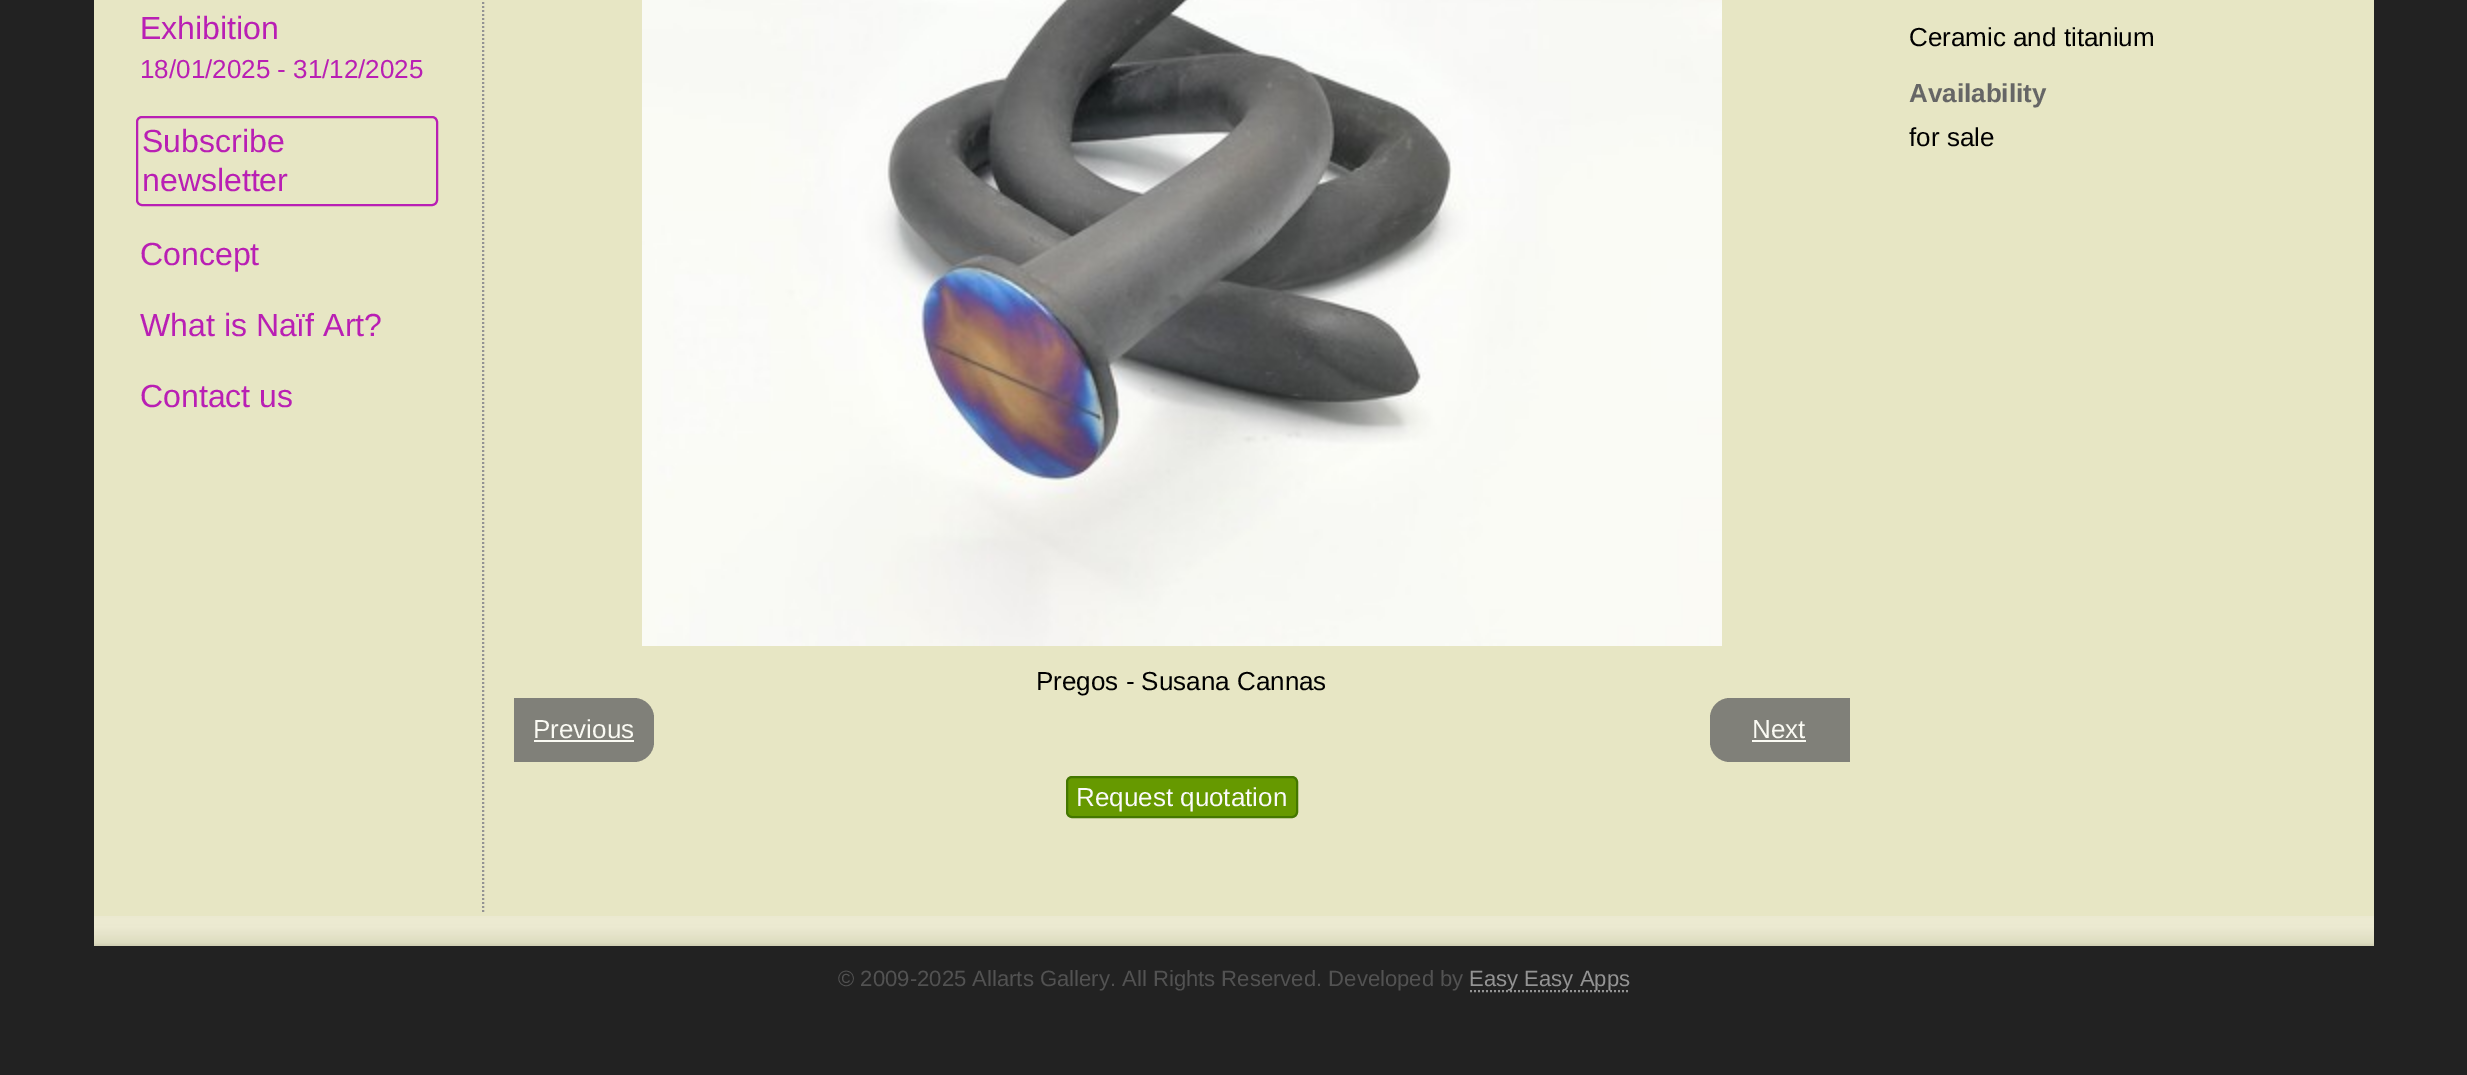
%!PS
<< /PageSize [2467 1075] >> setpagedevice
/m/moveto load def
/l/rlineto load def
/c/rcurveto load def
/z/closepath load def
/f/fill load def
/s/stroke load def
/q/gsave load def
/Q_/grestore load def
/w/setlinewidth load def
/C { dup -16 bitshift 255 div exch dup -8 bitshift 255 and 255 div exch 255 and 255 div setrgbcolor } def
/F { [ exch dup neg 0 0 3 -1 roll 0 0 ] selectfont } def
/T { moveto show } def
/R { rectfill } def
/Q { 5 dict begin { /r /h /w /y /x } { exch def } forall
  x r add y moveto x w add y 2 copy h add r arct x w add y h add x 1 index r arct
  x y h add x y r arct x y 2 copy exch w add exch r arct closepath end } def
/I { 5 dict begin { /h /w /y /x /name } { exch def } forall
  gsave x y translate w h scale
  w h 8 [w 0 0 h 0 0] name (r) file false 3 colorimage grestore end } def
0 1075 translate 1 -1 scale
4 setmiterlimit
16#222222 C
0 0 2467 1075 R
16#E7E6C4 C
94 0 2280 916 R
(1.rgb) 94 916 2280 30 I
16#939393 C
2 w
[2 2] 0 setdash
483 -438 m 0 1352 l s
/LiberationSans-Regular 32 F
16#B91FB4 C
(Exhibition) 140 39 T
/LiberationSans-Regular 26 F
(18/01/2025 - 31/12/2025) 140 78 T
[] 0 setdash
137 117 300 88 5 Q s
/LiberationSans-Regular 32 F
(Subscribe) 142 152 T
(newsletter) 142 191 T
(Concept) 140 265 T
(What is Naïf Art?) 140 336 T
(Contact us) 140 407 T
/LiberationSans-Regular 26 F
16#000000 C
(Ceramic and titanium) 1909 46 T
/LiberationSans-Bold 26 F
16#666666 C
(Availability) 1909 102 T
/LiberationSans-Regular 26 F
16#000000 C
(for sale) 1909 146 T
(2.rgb) 642 0 1080 646 I
(Pregos - Susana Cannas) 1036 690 T
16#808079 C
514 698 m 120 0 l 11 0 20 9 20 20 c 0 24 l 0 11 -9 20 -20 20 c -120 0 l z f
16#FAFAF3 C
(Previous) 533 738 T
534 740 100 2 R
16#808079 C
1730 698 m 120 0 l 0 64 l -120 0 l -11 0 -20 -9 -20 -20 c 0 -24 l 0 -11 9 -20 20 -20 c z f
16#FAFAF3 C
(Next) 1752 738 T
1752 740 54 2 R
16#669900 C
1067 777 230 40 5 Q q f Q_
16#447700 C
s
16#FAFAFA C
(Request quotation) 1076 806 T
/LiberationSans-Regular 22.1 F
16#525252 C
(© 2009-2025 Allarts Gallery. All Rights Reserved. Developed by) 838 986 T
16#939393 C
[2 2] 0 setdash
1470 991 m 160 0 l s
(Easy Easy Apps) 1469 986 T
showpage
